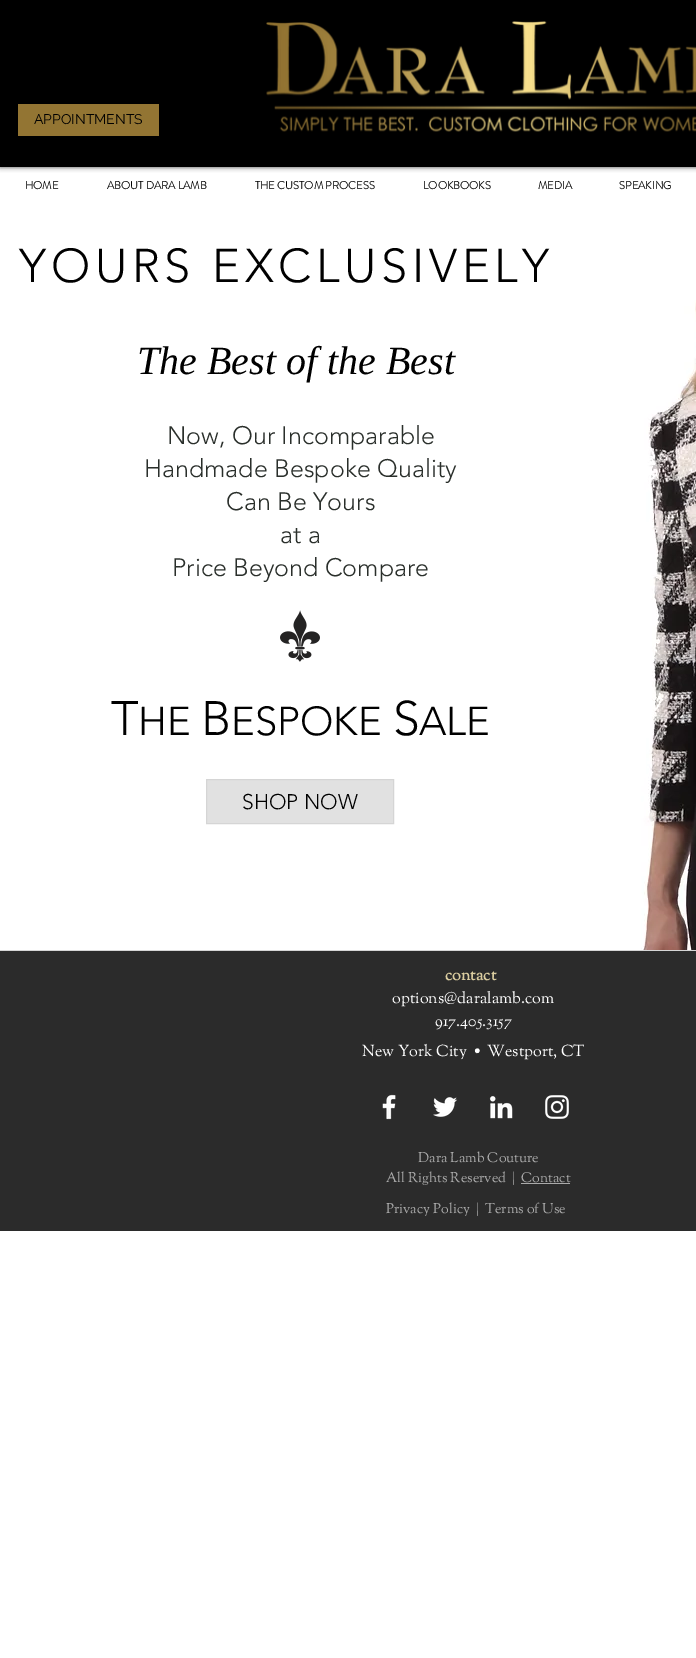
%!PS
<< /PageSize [696 1658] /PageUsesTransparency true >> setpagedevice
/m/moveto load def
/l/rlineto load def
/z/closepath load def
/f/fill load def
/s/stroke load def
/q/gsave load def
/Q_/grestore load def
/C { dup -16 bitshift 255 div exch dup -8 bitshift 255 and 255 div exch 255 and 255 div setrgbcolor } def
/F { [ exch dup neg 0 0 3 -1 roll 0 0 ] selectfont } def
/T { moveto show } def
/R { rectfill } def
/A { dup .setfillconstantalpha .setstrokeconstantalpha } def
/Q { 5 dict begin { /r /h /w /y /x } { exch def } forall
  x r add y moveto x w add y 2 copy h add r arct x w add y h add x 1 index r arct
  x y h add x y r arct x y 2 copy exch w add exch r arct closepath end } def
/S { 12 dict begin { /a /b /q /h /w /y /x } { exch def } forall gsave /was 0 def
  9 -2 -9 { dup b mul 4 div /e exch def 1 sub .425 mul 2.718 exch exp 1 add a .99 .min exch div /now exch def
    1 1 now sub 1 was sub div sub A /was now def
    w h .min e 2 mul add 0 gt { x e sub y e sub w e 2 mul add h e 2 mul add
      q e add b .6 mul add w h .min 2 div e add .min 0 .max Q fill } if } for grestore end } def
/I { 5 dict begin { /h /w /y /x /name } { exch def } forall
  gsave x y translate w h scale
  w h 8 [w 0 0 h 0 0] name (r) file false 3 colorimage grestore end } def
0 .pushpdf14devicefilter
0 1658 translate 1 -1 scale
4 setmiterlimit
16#FFFFFF C
0 0 696 1658 R
16#000000 C
0 0 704 167 0 2.5 .7 S
0 0 696 167 R
16#937533 C
18 104 141 32 R
/Raleway-Regular 14 F
16#000000 C
(APPOINTMENTS) 34 124 T
(1.rgb) 266 21 430 111 I
/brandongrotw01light-Bold 11 F
(HOME) 25 189 T
(ABOUT DARA LAMB) 107 189 T
(THE CUSTOM PROCESS) 255 189 T
(LOOKBOOKS) 423 189 T
(MEDIA) 538 189 T
(SPEAKING) 619 189 T
/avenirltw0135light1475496-Light 47 F
19 282 m 4.75 0 (YOURS EXCLUSIVELY) ashow
/LiberationSerif-Italic 40 F
(The Best of the Best) 137 374 T
(2.rgb) 641 300 55 650 I
/avenirltw0135light1475496-Light 25 F
16#2A2F2B C
(Now, Our Incomparable) 167 444 T
(Handmade Bespoke Quality) 144 477 T
(Can Be Yours) 226 510 T
(at a) 280 543 T
(Price Beyond Compare) 172 576 T
/avenirltw0135light1475496-Light 48 F
16#000000 C
(T) 111 735 T
/avenirltw0135light1475496-Light 40 F
(HE) 138 735 T
/avenirltw0135light1475496-Light 48 F
(B) 201 735 T
/avenirltw0135light1475496-Light 40 F
(ESPOKE) 231 735 T
/avenirltw0135light1475496-Light 48 F
(S) 393 735 T
/avenirltw0135light1475496-Light 40 F
(ALE) 419 735 T
(3.rgb) 280 610 40 52 I
16#E1E1E1 C
206.5 779.5 m 187 0 l 0 44 l -187 0 l z q f Q_
16#D5D5D5 C
s
/avenirltw0135light1475496-Light 21 F
16#000000 C
(SHOP NOW) 242 809 T
16#2B2B2B C
0 951 696 280 R
16#D5D5D5 C
0 950 696 1 R
/SortsMillGoudy-Bold 16 F
16#DBCDA0 C
(contact) 445 980 T
/SortsMillGoudy-Regular 16 F
16#FFFFFF C
(options@daralamb.com) 392 1003 T
(917.405.3157) 435 1026 T
(New York City  •  Westport, CT) 362 1056 T
(4.rgb) 382 1094 14 26 I
(5.rgb) 433 1097 25 20 I
(6.rgb) 489 1096 24 23 I
(7.rgb) 545 1095 24 24 I
/SortsMillGoudy-Regular 14 F
16#AAAAAA C
(Dara Lamb Couture) 418 1162 T
(All Rights Reserved  |) 386 1182 T
(Contact) 521 1182 T
521 1183 49 1 R
(Privacy Policy) 386 1213 T
(|) 476 1213 T
(Terms of Use) 485 1213 T
.poppdf14devicefilter showpage
